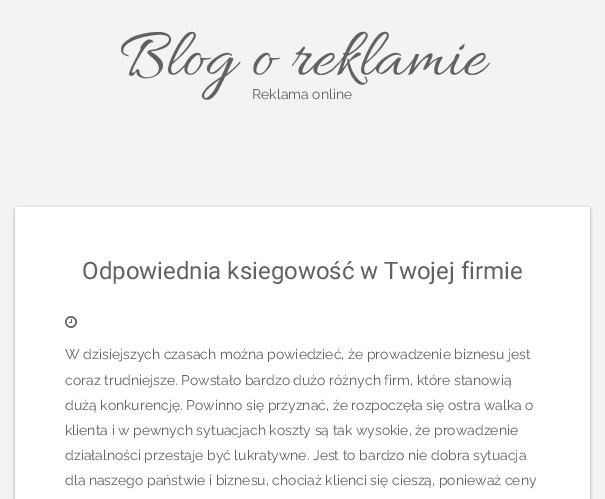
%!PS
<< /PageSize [605 499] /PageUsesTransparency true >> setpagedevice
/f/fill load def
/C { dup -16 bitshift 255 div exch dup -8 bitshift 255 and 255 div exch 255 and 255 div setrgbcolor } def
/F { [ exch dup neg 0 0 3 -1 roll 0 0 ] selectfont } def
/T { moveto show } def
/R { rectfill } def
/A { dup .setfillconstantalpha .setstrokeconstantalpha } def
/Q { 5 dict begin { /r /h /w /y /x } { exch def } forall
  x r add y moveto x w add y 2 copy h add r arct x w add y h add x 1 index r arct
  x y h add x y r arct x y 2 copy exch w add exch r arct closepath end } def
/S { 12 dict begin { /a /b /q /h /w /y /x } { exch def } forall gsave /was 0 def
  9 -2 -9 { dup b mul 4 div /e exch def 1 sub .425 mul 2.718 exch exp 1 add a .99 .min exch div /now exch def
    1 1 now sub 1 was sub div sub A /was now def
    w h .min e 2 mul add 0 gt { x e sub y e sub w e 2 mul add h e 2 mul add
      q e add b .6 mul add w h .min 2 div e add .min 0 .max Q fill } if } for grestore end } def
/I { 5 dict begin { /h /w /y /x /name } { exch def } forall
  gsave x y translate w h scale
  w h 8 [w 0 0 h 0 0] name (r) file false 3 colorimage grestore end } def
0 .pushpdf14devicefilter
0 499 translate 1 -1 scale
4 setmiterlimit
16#F3F3F3 C
0 0 605 499 R
/Allura-Regular 70 F
16#616161 C
(Blog o reklamie) 120 74 T
/Raleway-Regular 14 F
(Reklama online) 252 99 T
16#221919 C
15 208 575 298 2 1.5 .4 S
16#FFFFFF C
15 207 575 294 2 Q f
/Roboto-Regular 24 F
16#616161 C
(Odpowiednia ksiegowość w Twojej firmie) 82 279 T
(1.rgb) 65 316 12 12 I
/Raleway-Regular 14 F
(W dzisiejszych czasach można powiedzieć, że prowadzenie biznesu jest) 65 359 T
(coraz trudniejsze. Powstało bardzo dużo różnych firm, które stanowią) 65 385 T
(dużą konkurencję. Powinno się przyznać, że rozpoczęła się ostra walka o) 65 410 T
(klienta i w pewnych sytuacjach koszty są tak wysokie, że prowadzenie) 65 435 T
(działalności przestaje być lukratywne. Jest to bardzo nie dobra sytuacja) 65 460 T
(dla naszego państwie i biznesu, chociaż klienci się cieszą, ponieważ ceny) 65 485 T
.poppdf14devicefilter showpage
